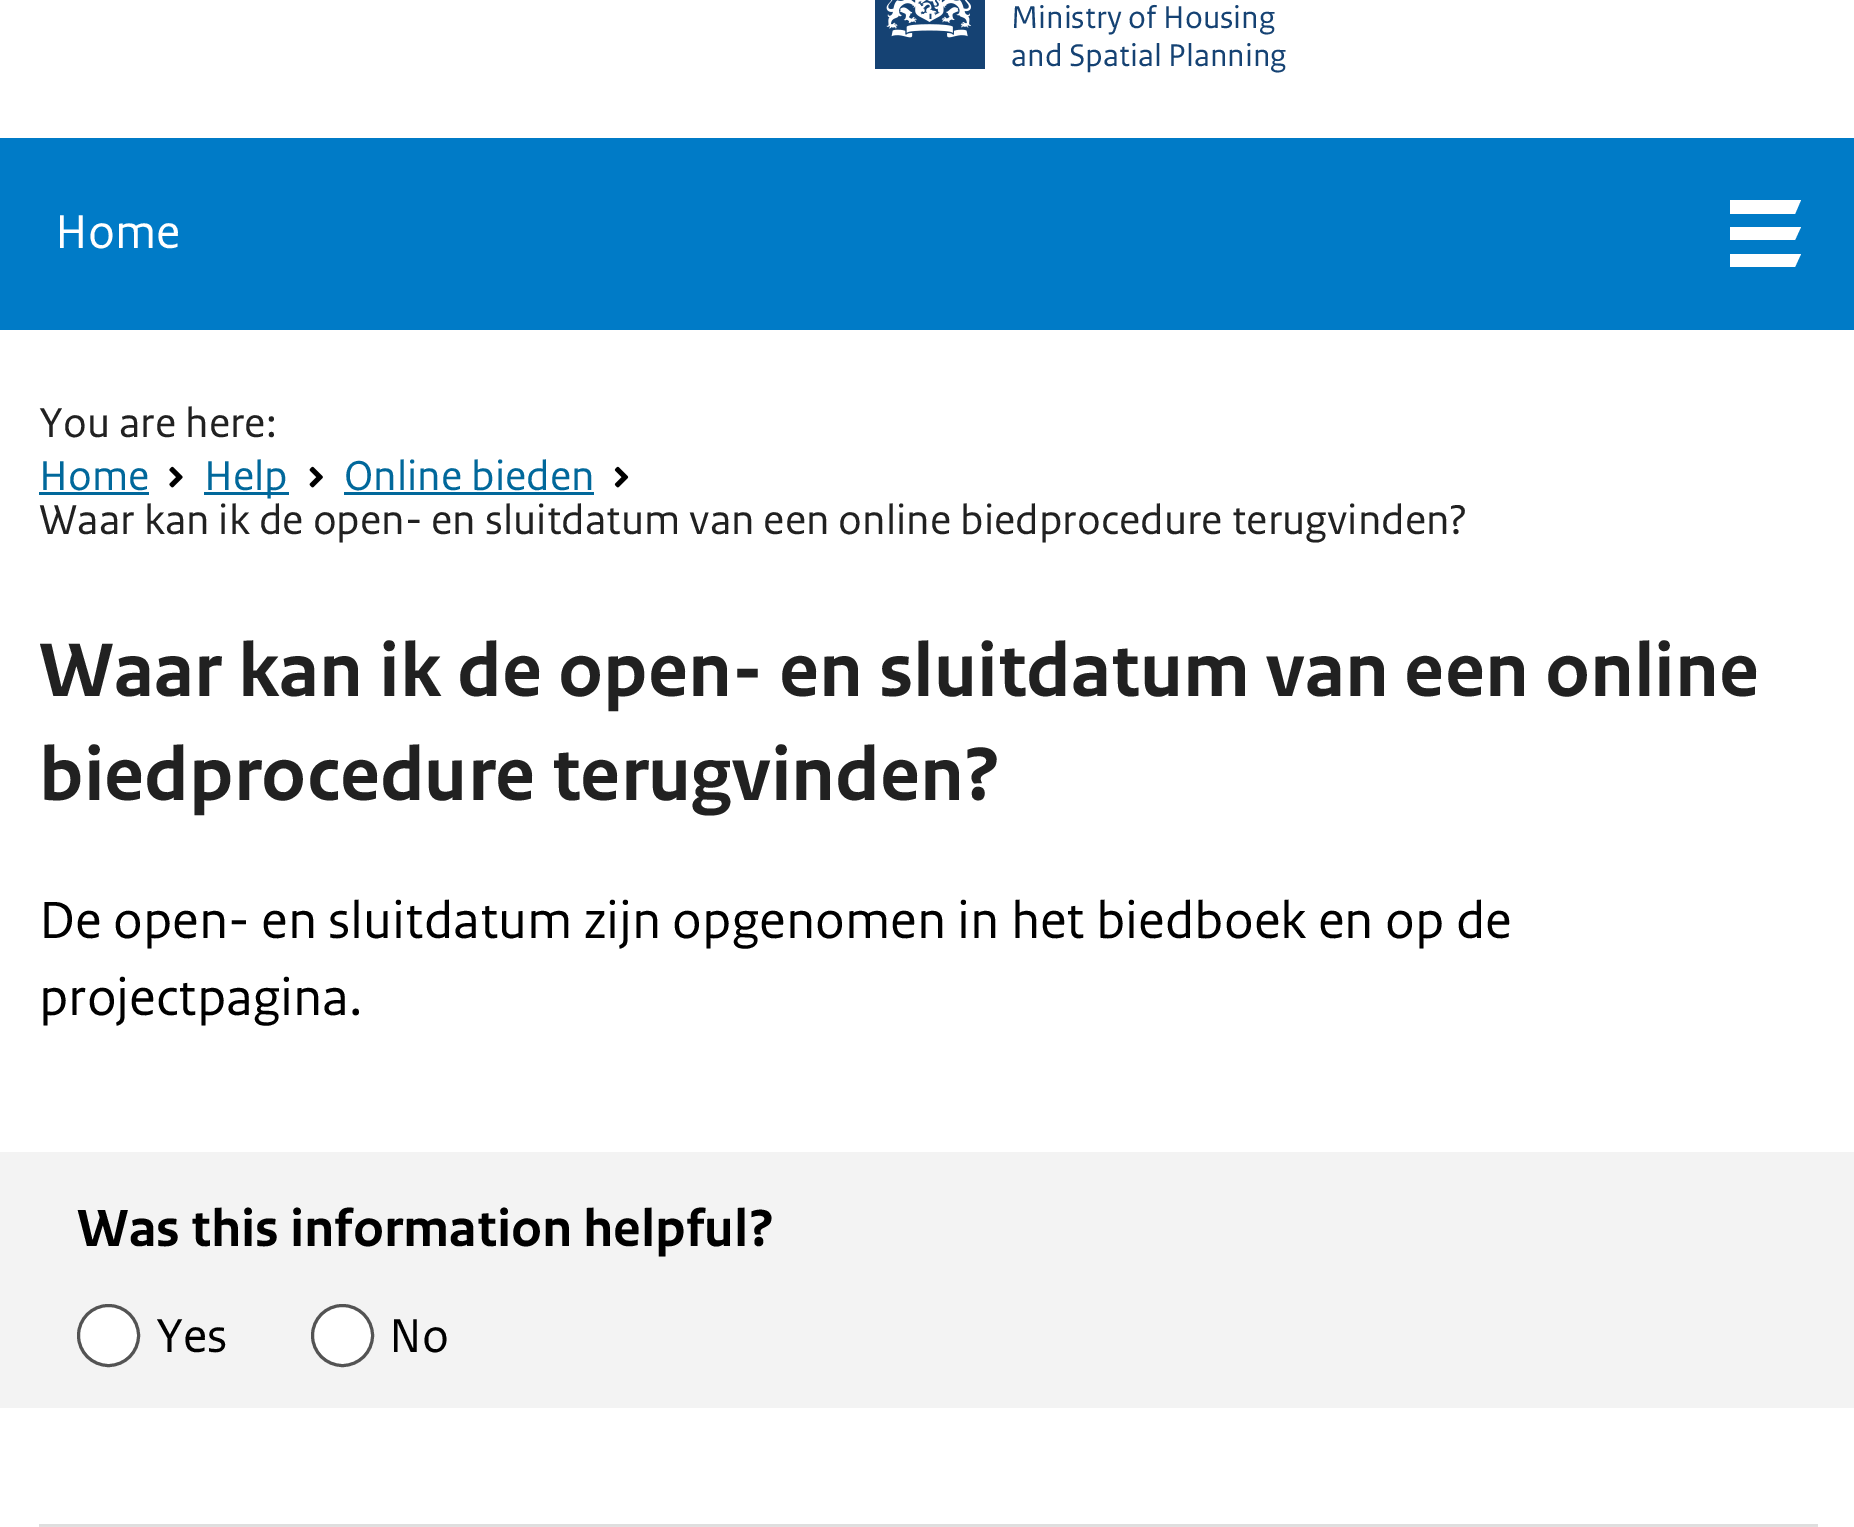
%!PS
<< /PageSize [1854 1527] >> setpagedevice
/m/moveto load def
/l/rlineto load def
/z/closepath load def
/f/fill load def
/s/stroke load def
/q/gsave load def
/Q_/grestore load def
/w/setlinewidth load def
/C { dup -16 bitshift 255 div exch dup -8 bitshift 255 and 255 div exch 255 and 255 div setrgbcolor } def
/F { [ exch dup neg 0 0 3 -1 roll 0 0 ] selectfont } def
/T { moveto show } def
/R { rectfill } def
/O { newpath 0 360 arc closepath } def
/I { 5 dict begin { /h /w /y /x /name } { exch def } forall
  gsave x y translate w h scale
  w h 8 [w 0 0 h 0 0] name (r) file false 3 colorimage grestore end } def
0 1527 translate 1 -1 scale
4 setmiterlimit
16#FFFFFF C
0 0 1854 1527 R
(1.rgb) 875 0 110 69 I
/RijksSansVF-Regular 33 F
16#154273 C
(Ministry of Housing) 1011 28 T
(and Spatial Planning) 1011 66 T
16#007BC7 C
0 138 1854 192 R
/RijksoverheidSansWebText-Regular 50 F
16#FFFFFF C
(Home) 55 248 T
1801 200 m -71 0 l 0 14 l 65 0 l z f
1730 240 m 65 0 l 6 -13 l -71 0 l z f
1730 267 m 65 0 l 6 -13 l -71 0 l z f
/RijksoverheidSansWebText-Regular 44 F
16#212121 C
(You are here:) 39 437 T
16#01689B C
(Home) 39 490 T
39 492 110 3 R
(2.rgb) 169 466 14 22 I
204 492 85 3 R
(Help) 204 490 T
(3.rgb) 309 466 14 22 I
(Online bieden) 344 490 T
344 492 250 3 R
(4.rgb) 614 466 15 22 I
16#212121 C
(Waar kan ik de open- en sluitdatum van een online biedprocedure terugvinden?) 39 534 T
/RijksoverheidSansWebText-Bold 79.75 F
(Waar kan ik de open- en sluitdatum van een online) 39 696 T
(biedprocedure terugvinden?) 39 800 T
/RijksoverheidSansWebText-Regular 55 F
16#000000 C
(De open- en sluitdatum zijn opgenomen in het biedboek en op de) 39 938 T
(projectpagina.) 39 1015 T
16#F3F3F3 C
0 1152 1854 256 R
/RijksoverheidSansWebText-Bold 55 F
16#000000 C
(Was this information helpful?) 77 1246 T
16#FFFFFF C
108.5 1335.5 30 O q f Q_
16#535353 C
3 w
s
/RijksoverheidSansWebText-Regular 50 F
16#000000 C
(Yes) 156 1352 T
16#FFFFFF C
342.5 1335.5 30 O q f Q_
16#535353 C
s
16#000000 C
(No) 389 1352 T
16#DEDEDE C
39 1524 1779 2 R
16#E1E1E1 C
39 1526 1779 1 R
showpage
